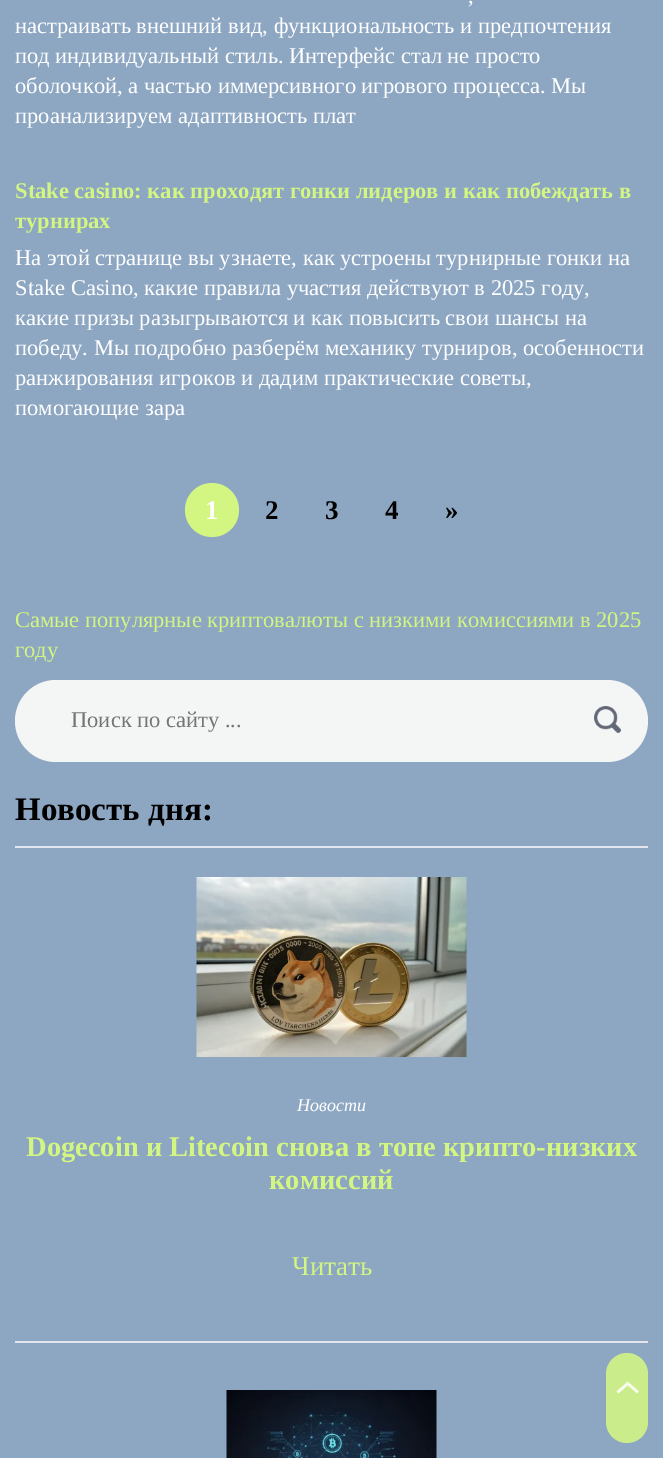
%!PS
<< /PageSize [663 1458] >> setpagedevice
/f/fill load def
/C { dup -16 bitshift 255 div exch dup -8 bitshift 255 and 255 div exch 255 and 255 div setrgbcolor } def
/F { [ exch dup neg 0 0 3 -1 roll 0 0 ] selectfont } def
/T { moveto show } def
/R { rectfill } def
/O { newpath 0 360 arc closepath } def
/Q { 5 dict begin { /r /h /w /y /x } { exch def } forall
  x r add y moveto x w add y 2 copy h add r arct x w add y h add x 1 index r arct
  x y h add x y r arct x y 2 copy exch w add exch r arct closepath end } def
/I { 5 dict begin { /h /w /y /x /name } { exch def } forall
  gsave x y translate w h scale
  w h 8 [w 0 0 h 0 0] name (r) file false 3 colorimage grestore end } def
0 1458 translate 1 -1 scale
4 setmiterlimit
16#8DA7C3 C
0 0 663 1458 R
/LiberationSerif-Regular 22.5 F
16#FFFFFF C
(,) 468 3 T
(настраивать внешний вид, функциональность и предпочтения) 15 33 T
(под индивидуальный стиль. Интерфейс стал не просто) 15 63 T
(оболочкой, а частью иммерсивного игрового процесса. Мы) 15 93 T
(проанализируем адаптивность плат) 15 123 T
/LiberationSerif-Bold 22.5 F
16#D3F582 C
(Stake сasino: как проходят гонки лидеров и как побеждать в) 15 198 T
(турнирах) 15 228 T
/LiberationSerif-Regular 22.5 F
16#FFFFFF C
(На этой странице вы узнаете, как устроены турнирные гонки на) 15 265 T
(Stake Casino, какие правила участия действуют в 2025 году,) 15 295 T
(какие призы разыгрываются и как повысить свои шансы на) 15 325 T
(победу. Мы подробно разберём механику турниров, особенности) 15 355 T
(ранжирования игроков и дадим практические советы,) 15 385 T
(помогающие зара) 15 415 T
16#D3F582 C
212 510 27 O f
/LiberationSerif-Bold 27 F
16#FFFFFF C
(1) 205 519 T
16#000000 C
(2) 265 519 T
(3) 325 519 T
(4) 385 519 T
(») 445 519 T
/LiberationSerif-Regular 22.5 F
16#D3F582 C
(Самые популярные криптовалюты с низкими комиссиями в 2025) 15 627 T
(году) 15 657 T
16#F4F5F5 C
15 680 633 82 41 Q f
16#757575 C
(Поиск по сайту ...) 71 727 T
(1.rgb) 594 706 27 27 I
16#E5E6ED C
15 846 633 2 R
/LiberationSerif-Bold 33 F
16#000000 C
(Новость дня:) 15 820 T
16#E5E6ED C
15 1341 633 2 R
(2.rgb) 196 877 271 180 I
/LiberationSerif-Italic 18 F
16#FFFFFF C
(Новости) 297 1111 T
/LiberationSerif-Bold 28.5 F
16#D3F582 C
(Dogecoin и Litecoin снова в топе крипто-низких) 26 1156 T
(комиссий) 269 1189 T
/LiberationSerif-Regular 27 F
(Читать) 292 1275 T
(3.rgb) 226 1390 211 68 I
16#CBEC8A C
606 1353 42 90 21 Q f
(4.rgb) 616 1381 23 13 I
showpage
